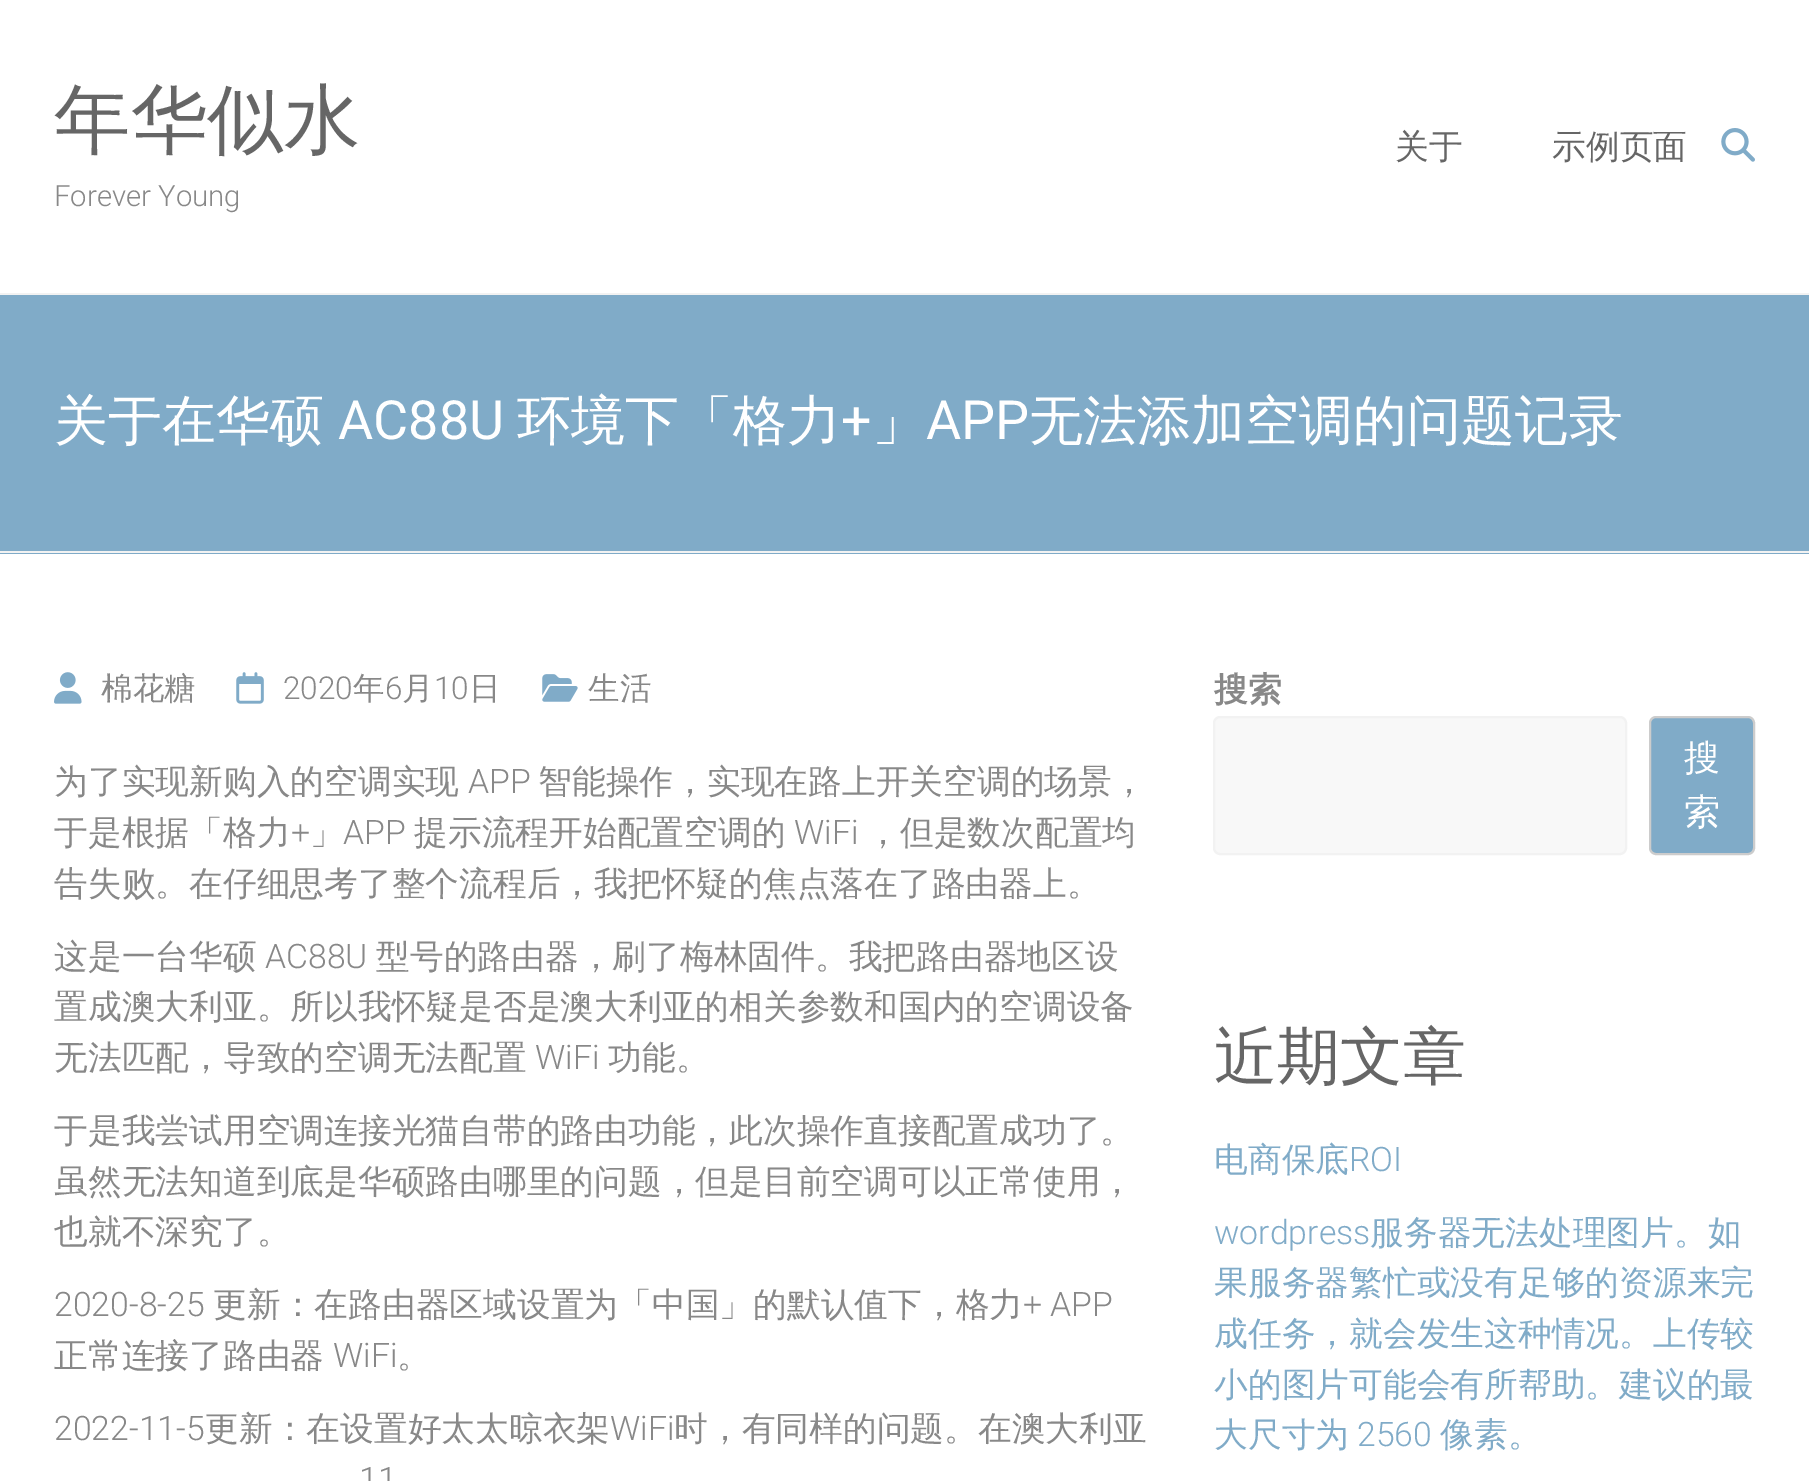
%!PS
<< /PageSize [1809 1481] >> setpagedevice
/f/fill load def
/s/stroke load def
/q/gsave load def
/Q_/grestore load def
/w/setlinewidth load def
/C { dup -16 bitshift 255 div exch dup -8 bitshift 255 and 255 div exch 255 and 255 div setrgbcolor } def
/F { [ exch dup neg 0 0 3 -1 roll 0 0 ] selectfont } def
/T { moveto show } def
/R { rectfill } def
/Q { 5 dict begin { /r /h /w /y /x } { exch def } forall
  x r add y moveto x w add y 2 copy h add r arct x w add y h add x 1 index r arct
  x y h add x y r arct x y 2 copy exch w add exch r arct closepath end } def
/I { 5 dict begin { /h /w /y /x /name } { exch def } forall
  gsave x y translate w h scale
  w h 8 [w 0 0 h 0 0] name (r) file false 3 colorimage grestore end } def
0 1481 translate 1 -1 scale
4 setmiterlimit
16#FFFFFF C
0 0 1809 1481 R
16#F2F2F2 C
0 293 1809 2 R
/WenQuanYiZenHei-Medium 76.5 F
16#666666 C
(年华似水) 54 146 T
/Roboto-Light 29.25 F
16#888888 C
(Forever Young) 54 206 T
/WenQuanYiZenHei-Medium 33.75 F
16#666666 C
(关于) 1395 158 T
(示例页面) 1552 158 T
(1.rgb) 1721 128 34 34 I
16#80ABC8 C
0 295 1809 259 R
16#F2F2F2 C
0 551 1809 2 R
/WenQuanYiZenHei-Medium 54 F
16#FFFFFF C
(关于在华硕) 54 439 T
/Roboto-Regular 54 F
(AC88U) 338 439 T
/WenQuanYiZenHei-Medium 54 F
(环境下「格力) 517 439 T
/Roboto-Regular 54 F
(+) 841 439 T
/WenQuanYiZenHei-Medium 54 F
(」) 872 439 T
/Roboto-Regular 54 F
(APP) 926 439 T
/WenQuanYiZenHei-Medium 54 F
(无法添加空调的问题记录) 1029 439 T
(2.rgb) 54 672 28 32 I
/WenQuanYiZenHei-Medium 31.5 F
16#888888 C
(棉花糖) 101 699 T
(3.rgb) 236 672 28 32 I
/Roboto-Light 31.5 F
(2020) 283 699 T
/WenQuanYiZenHei-Medium 31.5 F
(年) 353 699 T
/Roboto-Light 31.5 F
(6) 385 699 T
/WenQuanYiZenHei-Medium 31.5 F
(月) 402 699 T
/Roboto-Light 31.5 F
(10) 434 699 T
/WenQuanYiZenHei-Medium 31.5 F
(日) 469 699 T
(4.rgb) 542 674 36 28 I
(生活) 588 699 T
/WenQuanYiZenHei-Medium 33.75 F
(为了实现新购入的空调实现) 54 793 T
/Roboto-Light 33.75 F
(APP) 468 793 T
/WenQuanYiZenHei-Medium 33.75 F
(智能操作，实现在路上开关空调的场景，) 538 793 T
(于是根据「格力) 54 844 T
/Roboto-Light 33.75 F
(+) 291 844 T
/WenQuanYiZenHei-Medium 33.75 F
(」) 310 844 T
/Roboto-Light 33.75 F
(APP) 343 844 T
/WenQuanYiZenHei-Medium 33.75 F
(提示流程开始配置空调的) 414 844 T
/Roboto-Light 33.75 F
(WiFi) 794 844 T
/WenQuanYiZenHei-Medium 33.75 F
(，但是数次配置均) 866 844 T
(告失败。在仔细思考了整个流程后，我把怀疑的焦点落在了路由器上。) 54 895 T
(这是一台华硕) 54 968 T
/Roboto-Light 33.75 F
(AC88U) 265 968 T
/WenQuanYiZenHei-Medium 33.75 F
(型号的路由器，刷了梅林固件。我把路由器地区设) 376 968 T
(置成澳大利亚。所以我怀疑是否是澳大利亚的相关参数和国内的空调设备) 54 1018 T
(无法匹配，导致的空调无法配置) 54 1069 T
/Roboto-Light 33.75 F
(WiFi) 535 1069 T
/WenQuanYiZenHei-Medium 33.75 F
(功能。) 608 1069 T
(于是我尝试用空调连接光猫自带的路由功能，此次操作直接配置成功了。) 54 1142 T
(虽然无法知道到底是华硕路由哪里的问题，但是目前空调可以正常使用，) 54 1193 T
(也就不深究了。) 54 1243 T
/Roboto-Light 33.75 F
(2020-8-25) 54 1316 T
/WenQuanYiZenHei-Medium 33.75 F
(更新：在路由器区域设置为「中国」的默认值下，格力) 213 1316 T
/Roboto-Light 33.75 F
(+ APP) 1023 1316 T
/WenQuanYiZenHei-Medium 33.75 F
(正常连接了路由器) 54 1367 T
/Roboto-Light 33.75 F
(WiFi) 333 1367 T
/WenQuanYiZenHei-Medium 33.75 F
(。) 397 1367 T
/Roboto-Light 33.75 F
(2022-11-5) 54 1440 T
/WenQuanYiZenHei-Medium 33.75 F
(更新：在设置好太太晾衣架) 205 1440 T
/Roboto-Light 33.75 F
(WiFi) 610 1440 T
/WenQuanYiZenHei-Medium 33.75 F
(时，有同样的问题。在澳大利亚) 674 1440 T
/Roboto-Light 33.75 F
(11) 359 1491 T
/WenQuanYiZenHei-Bold 33.75 F
(搜索) 1214 701 T
16#F8F8F8 C
1214 717 412 137 6 Q q f Q_
16#F2F2F2 C
2 w
s
16#80ABC8 C
1650 717 104 137 6 Q q f Q_
16#CCCCCC C
s
/WenQuanYiZenHei-Medium 36 F
16#FFFFFF C
(搜) 1684 770 T
(索) 1684 824 T
/WenQuanYiZenHei-Medium 63 F
16#666666 C
(近期文章) 1214 1078 T
/WenQuanYiZenHei-Medium 33.75 F
16#80ABC8 C
(电商保底) 1214 1171 T
/Roboto-Light 33.75 F
(ROI) 1349 1171 T
(wordpress) 1214 1244 T
/WenQuanYiZenHei-Medium 33.75 F
(服务器无法处理图片。如) 1370 1244 T
(果服务器繁忙或没有足够的资源来完) 1214 1294 T
(成任务，就会发生这种情况。上传较) 1214 1345 T
(小的图片可能会有所帮助。建议的最) 1214 1396 T
(大尺寸为) 1214 1446 T
/Roboto-Light 33.75 F
(2560) 1357 1446 T
/WenQuanYiZenHei-Medium 33.75 F
(像素。) 1440 1446 T
showpage
